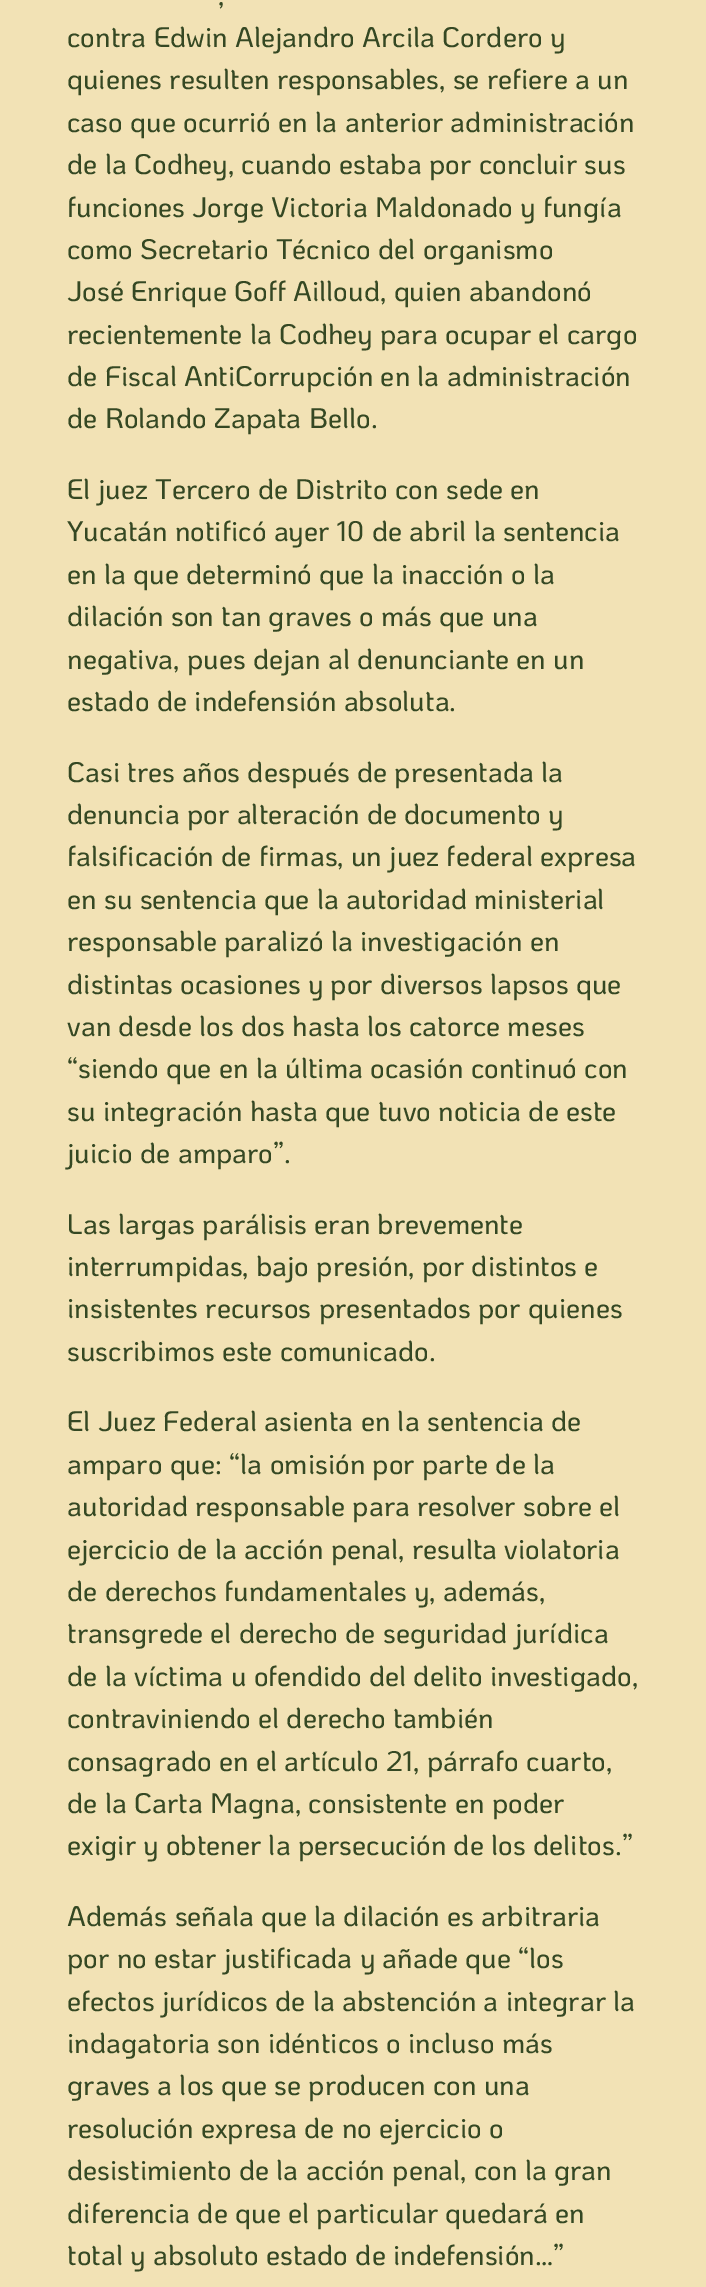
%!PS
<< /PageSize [706 2287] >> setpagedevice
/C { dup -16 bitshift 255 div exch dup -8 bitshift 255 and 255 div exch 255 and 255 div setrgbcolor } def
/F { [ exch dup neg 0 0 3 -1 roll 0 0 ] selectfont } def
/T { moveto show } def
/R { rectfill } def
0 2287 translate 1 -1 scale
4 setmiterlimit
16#F2E2B5 C
0 0 706 2287 R
/KoHo-Medium 28.25 F
16#354823 C
(,) 218 5 T
(contra Edwin Alejandro Arcila Cordero y) 67 47 T
(quienes resulten responsables, se refiere a un) 67 89 T
(caso que ocurrió en la anterior administración) 67 132 T
(de la Codhey, cuando estaba por concluir sus) 67 174 T
(funciones Jorge Victoria Maldonado y fungía) 67 217 T
(como Secretario Técnico del organismo) 67 259 T
(José Enrique Goff Ailloud, quien abandonó) 67 301 T
(recientemente la Codhey para ocupar el cargo) 67 344 T
(de Fiscal AntiCorrupción en la administración) 67 386 T
(de Rolando Zapata Bello.) 67 428 T
(El juez Tercero de Distrito con sede en) 67 499 T
(Yucatán notificó ayer 10 de abril la sentencia) 67 541 T
(en la que determinó que la inacción o la) 67 584 T
(dilación son tan graves o más que una) 67 626 T
(negativa, pues dejan al denunciante en un) 67 669 T
(estado de indefensión absoluta.) 67 711 T
(Casi tres años después de presentada la) 67 782 T
(denuncia por alteración de documento y) 67 824 T
(falsificación de firmas, un juez federal expresa) 67 866 T
(en su sentencia que la autoridad ministerial) 67 909 T
(responsable paralizó la investigación en) 67 951 T
(distintas ocasiones y por diversos lapsos que) 67 994 T
(van desde los dos hasta los catorce meses) 67 1036 T
(“siendo que en la última ocasión continuó con) 67 1078 T
(su integración hasta que tuvo noticia de este) 67 1121 T
(juicio de amparo”.) 67 1163 T
(Las largas parálisis eran brevemente) 67 1234 T
(interrumpidas, bajo presión, por distintos e) 67 1276 T
(insistentes recursos presentados por quienes) 67 1318 T
(suscribimos este comunicado.) 67 1361 T
(El Juez Federal asienta en la sentencia de) 67 1431 T
(amparo que: “la omisión por parte de la) 67 1474 T
(autoridad responsable para resolver sobre el) 67 1516 T
(ejercicio de la acción penal, resulta violatoria) 67 1559 T
(de derechos fundamentales y, además,) 67 1601 T
(transgrede el derecho de seguridad jurídica) 67 1643 T
(de la víctima u ofendido del delito investigado,) 67 1686 T
(contraviniendo el derecho también) 67 1728 T
(consagrado en el artículo 21, párrafo cuarto,) 67 1771 T
(de la Carta Magna, consistente en poder) 67 1813 T
(exigir y obtener la persecución de los delitos.”) 67 1855 T
(Además señala que la dilación es arbitraria) 67 1926 T
(por no estar justificada y añade que “los) 67 1968 T
(efectos jurídicos de la abstención a integrar la) 67 2011 T
(indagatoria son idénticos o incluso más) 67 2053 T
(graves a los que se producen con una) 67 2095 T
(resolución expresa de no ejercicio o) 67 2138 T
(desistimiento de la acción penal, con la gran) 67 2180 T
(diferencia de que el particular quedará en) 67 2223 T
(total y absoluto estado de indefensión…”) 67 2265 T
showpage
